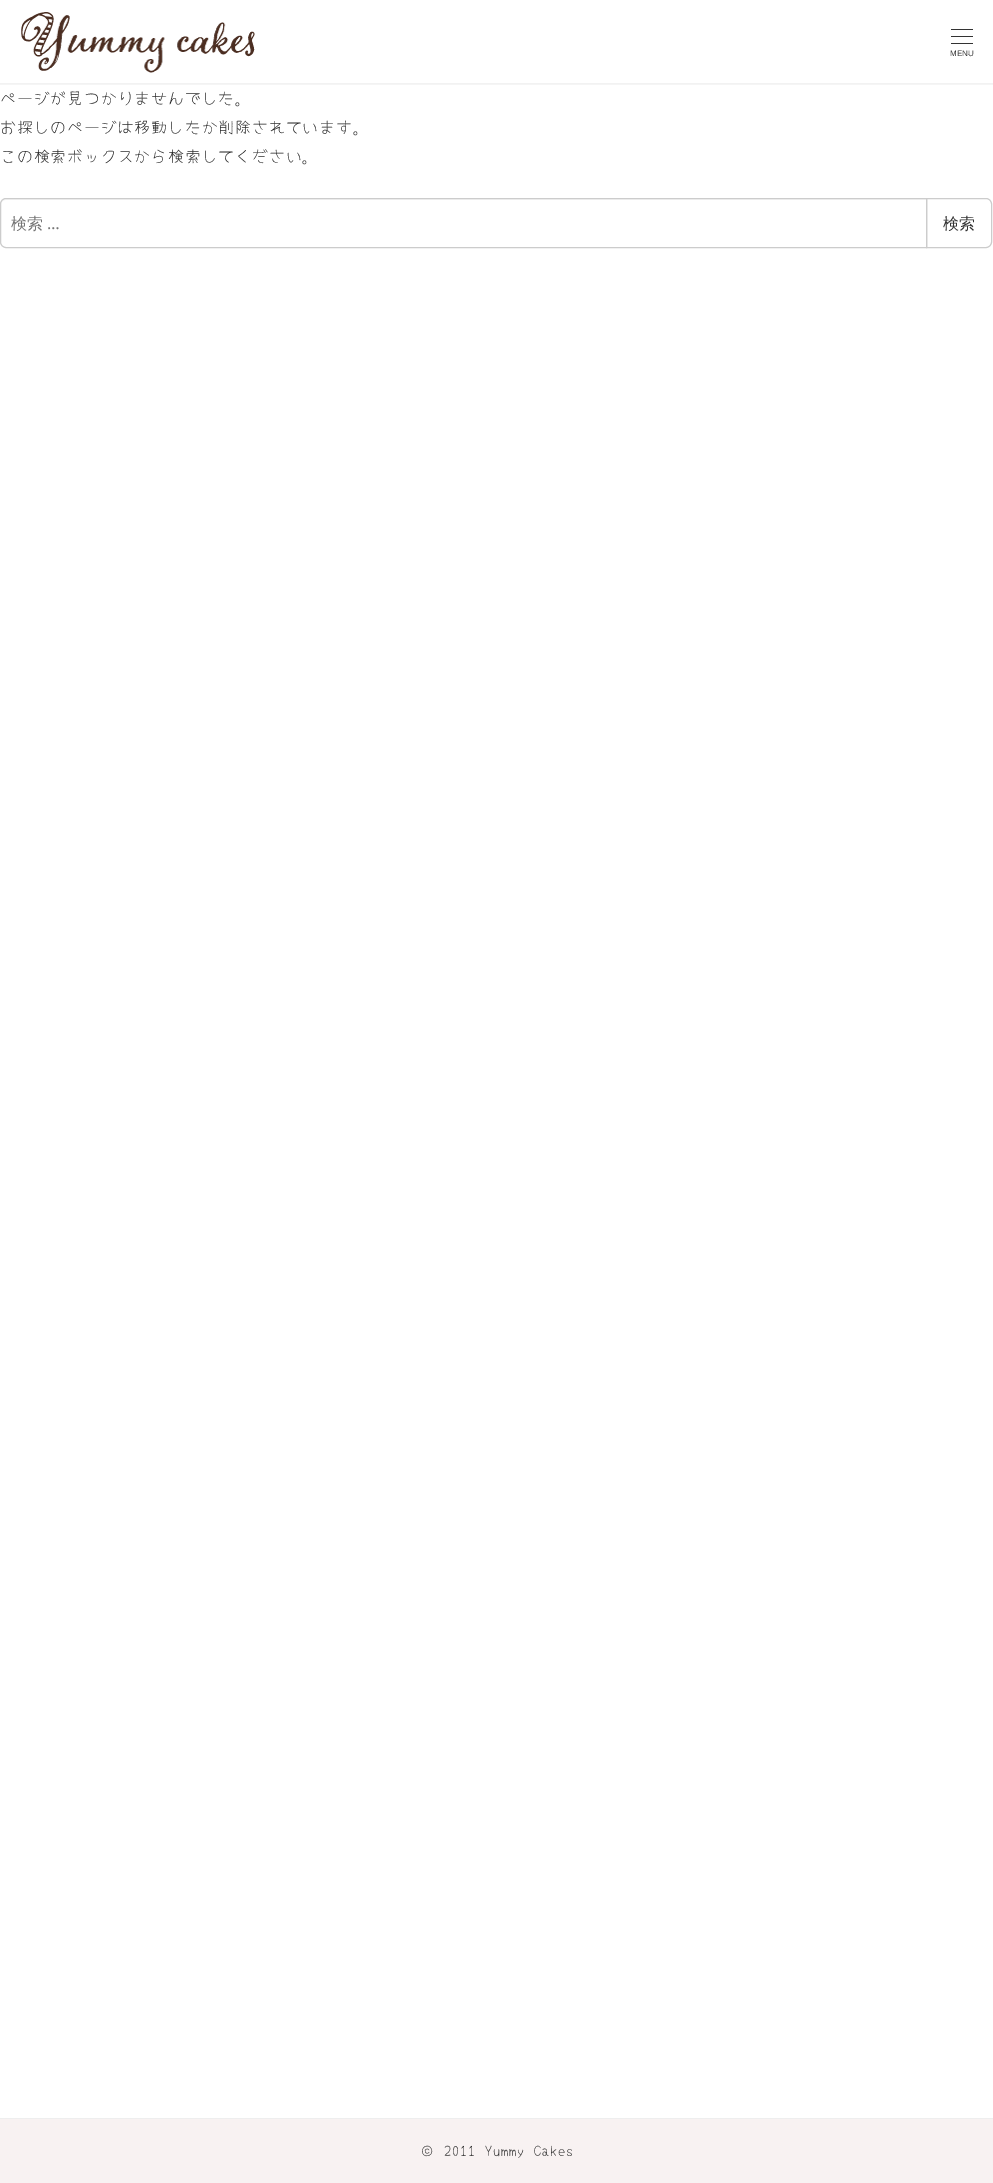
%!PS
<< /PageSize [993 2183] /PageUsesTransparency true >> setpagedevice
/m/moveto load def
/l/rlineto load def
/c/rcurveto load def
/z/closepath load def
/f/fill load def
/s/stroke load def
/q/gsave load def
/Q_/grestore load def
/C { dup -16 bitshift 255 div exch dup -8 bitshift 255 and 255 div exch 255 and 255 div setrgbcolor } def
/F { [ exch dup neg 0 0 3 -1 roll 0 0 ] selectfont } def
/T { moveto show } def
/R { rectfill } def
/A { dup .setfillconstantalpha .setstrokeconstantalpha } def
/Q { 5 dict begin { /r /h /w /y /x } { exch def } forall
  x r add y moveto x w add y 2 copy h add r arct x w add y h add x 1 index r arct
  x y h add x y r arct x y 2 copy exch w add exch r arct closepath end } def
/S { 12 dict begin { /a /b /q /h /w /y /x } { exch def } forall gsave /was 0 def
  9 -2 -9 { dup b mul 4 div /e exch def 1 sub .425 mul 2.718 exch exp 1 add a .99 .min exch div /now exch def
    1 1 now sub 1 was sub div sub A /was now def
    w h .min e 2 mul add 0 gt { x e sub y e sub w e 2 mul add h e 2 mul add
      q e add b .6 mul add w h .min 2 div e add .min 0 .max Q fill } if } for grestore end } def
/I { 5 dict begin { /h /w /y /x /name } { exch def } forall
  gsave x y translate w h scale
  w h 8 [w 0 0 h 0 0] name (r) file false 3 colorimage grestore end } def
0 .pushpdf14devicefilter
0 2183 translate 1 -1 scale
4 setmiterlimit
16#FFFFFF C
0 0 993 2183 R
q
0 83 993 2 rectclip
16#000000 C
-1 0 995 85 0 1 .05 S
Q_
(1.rgb) 21 12 234 61 I
16#333333 C
951 29 22 1 R
951 36 22 1 R
951 43 22 1 R
/LiberationSans-Regular 8 F
(MENU) 950 56 T
/Yomogi-Regular 16 F
16#2B2B2B C
0 104 m .8 0 (ページが見つかりませんでした。) ashow
0 133 m .8 0 (お探しのページは移動したか削除されています。) ashow
0 162 m .8 0 (この検索ボックスから検索してください。) ashow
16#CCCCCC C
926.5 198.5 m 59.5 0 l 3 0 5.5 2.5 5.5 5.5 c 0 38 l 0 3 -2.5 5.5 -5.5 5.5 c -59.5 0 l z s
16#FFFFFF C
6 198 m 921 0 l 0 50 l -921 0 l -3.5 0 -6 -2.5 -6 -6 c 0 -38 l 0 -3.5 2.5 -6 6 -6 c z f
16#F6F6F6 C
6 200 m 920 0 l 0 -1 l -920 0 l -3 0 -5 3 -5 6 c 0 -3 2 -5 5 -5 c z f
16#CCCCCC C
6 198.5 m 920.5 0 l 0 49 l -920.5 0 l -3 0 -5.5 -2.5 -5.5 -5.5 c 0 -38 l 0 -3 2.5 -5.5 5.5 -5.5 c z s
/WenQuanYiZenHei-Medium 16 F
16#757575 C
(検索) 11 229 T
/NotoSans-Regular 16 F
(…) 47 229 T
/WenQuanYiZenHei-Medium 16 F
16#333333 C
(検索) 943 229 T
16#EEEEEE C
0 2118 993 1 R
16#F8F2F2 C
0 2119 993 64 R
/Yomogi-Regular 14.25 F
16#333333 C
420 2156 m .8 0 (© 2011 Yummy Cakes) ashow
.poppdf14devicefilter showpage
